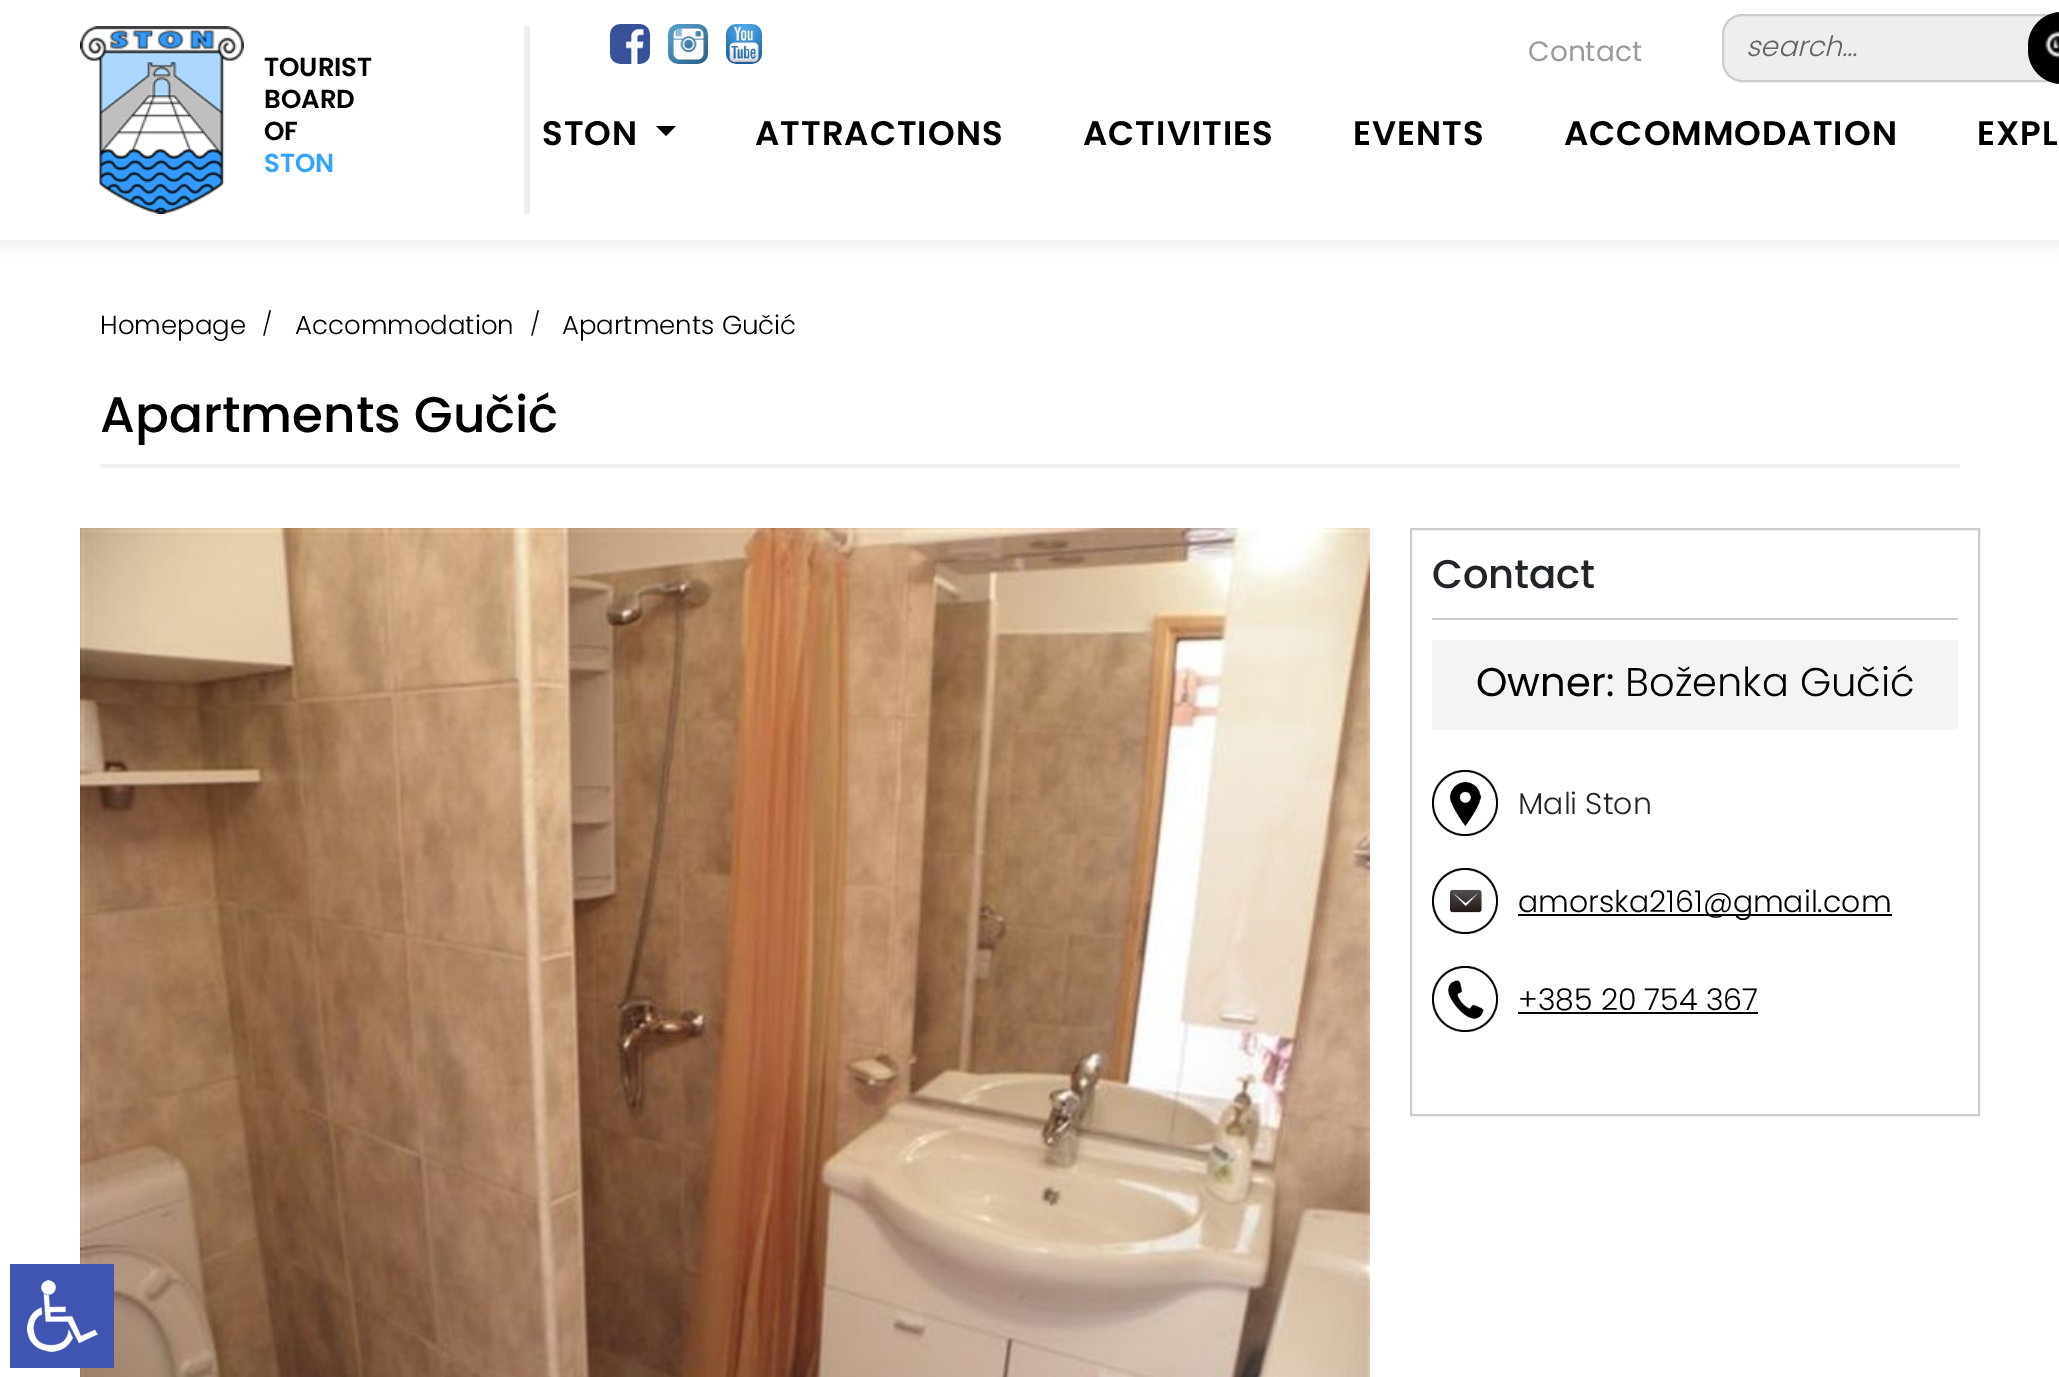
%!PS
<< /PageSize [2059 1377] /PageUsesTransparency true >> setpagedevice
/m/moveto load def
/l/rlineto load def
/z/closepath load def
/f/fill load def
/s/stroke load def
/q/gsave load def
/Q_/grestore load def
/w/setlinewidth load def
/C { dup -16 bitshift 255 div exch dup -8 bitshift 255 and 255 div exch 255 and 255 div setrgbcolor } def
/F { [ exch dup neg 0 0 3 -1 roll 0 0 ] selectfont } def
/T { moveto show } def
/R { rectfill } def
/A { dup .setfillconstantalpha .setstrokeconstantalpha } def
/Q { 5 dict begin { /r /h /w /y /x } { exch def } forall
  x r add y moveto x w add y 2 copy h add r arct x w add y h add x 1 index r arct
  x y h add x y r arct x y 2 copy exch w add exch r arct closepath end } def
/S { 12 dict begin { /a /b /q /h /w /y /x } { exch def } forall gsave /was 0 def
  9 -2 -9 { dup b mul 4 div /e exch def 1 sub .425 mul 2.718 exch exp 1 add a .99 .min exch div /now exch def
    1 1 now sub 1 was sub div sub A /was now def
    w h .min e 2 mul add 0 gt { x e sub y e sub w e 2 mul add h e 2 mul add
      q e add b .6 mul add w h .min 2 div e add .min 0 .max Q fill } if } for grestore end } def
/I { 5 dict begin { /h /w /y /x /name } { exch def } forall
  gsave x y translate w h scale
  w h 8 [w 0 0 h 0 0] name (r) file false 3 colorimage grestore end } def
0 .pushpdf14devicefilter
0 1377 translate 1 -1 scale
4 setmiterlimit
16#FFFFFF C
0 0 2059 1377 R
16#000000 C
0 2 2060 240 0 10 .1 S
16#FFFFFF C
0 0 2059 240 R
(1.rgb) 610 24 40 40 I
(2.rgb) 668 24 40 40 I
(3.rgb) 726 24 36 40 I
/Poppins-Regular 28 F
16#9B9999 C
(Contact) 1528 61 T
16#EEEEEE C
1723 15 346 66 19 Q q f Q_
16#CCCCCC C
2 w
s
/Poppins-LightItalic 28 F
16#636363 C
(search...) 1746 56 T
16#000000 C
2028 12 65 72 34 Q f
(4.rgb) 2045 31 14 28 I
16#EEEEEE C
524 26 6 188 R
(5.rgb) 80 26 164 188 I
/Poppins-SemiBold 26 F
16#000000 C
(TOURIST) 264 76 T
(BOARD) 264 108 T
(OF) 264 140 T
16#35A2FF C
(STON) 264 172 T
/Poppins-SemiBold 34 F
16#000000 C
542 145 m 1 0 (STON) ashow
656 126 m 20 0 l -10 10 l z f
755 145 m 1 0 (ATTRACTIONS) ashow
1083 145 m 1 0 (ACTIVITIES) ashow
1353 145 m 1 0 (EVENTS) ashow
1564 145 m 1 0 (ACCOMMODATION) ashow
1977 145 m 1 0 (EXPL) ashow
/Poppins-Light 26 F
(Homepage) 100 334 T
/Poppins-Light 23 F
(/) 262 332 T
/Poppins-Light 26 F
(Accommodation) 295 334 T
/Poppins-Light 23 F
(/) 530 332 T
/Poppins-Light 26 F
(Apartments Gučić) 562 334 T
/Poppins-Medium 50 F
(Apartments Gučić) 100 432 T
16#F1F1F1 C
100 464 1860 4 R
(6.rgb) 80 528 1290 849 I
16#CCCCCC C
1411 529 568 586 rectstroke
/Poppins-Medium 40 F
16#212529 C
(Contact) 1432 588 T
16#CCCCCC C
1432 618 526 2 R
16#F4F4F4 C
1432 640 526 90 R
/Poppins-Regular 40 F
16#000000 C
(Owner:) 1476 696 T
/Poppins-Light 40 F
(Boženka Gučić) 1625 696 T
(7.rgb) 1432 770 66 66 I
/Poppins-Light 30 F
16#212529 C
(Mali Ston) 1518 814 T
(8.rgb) 1432 868 66 66 I
16#000000 C
1518 914 374 2 R
(amorska2161@gmail.com) 1518 912 T
(9.rgb) 1432 966 66 66 I
(+385 20 754 367) 1518 1010 T
1518 1012 240 2 R
(10.rgb) 10 1264 104 104 I
.poppdf14devicefilter showpage
